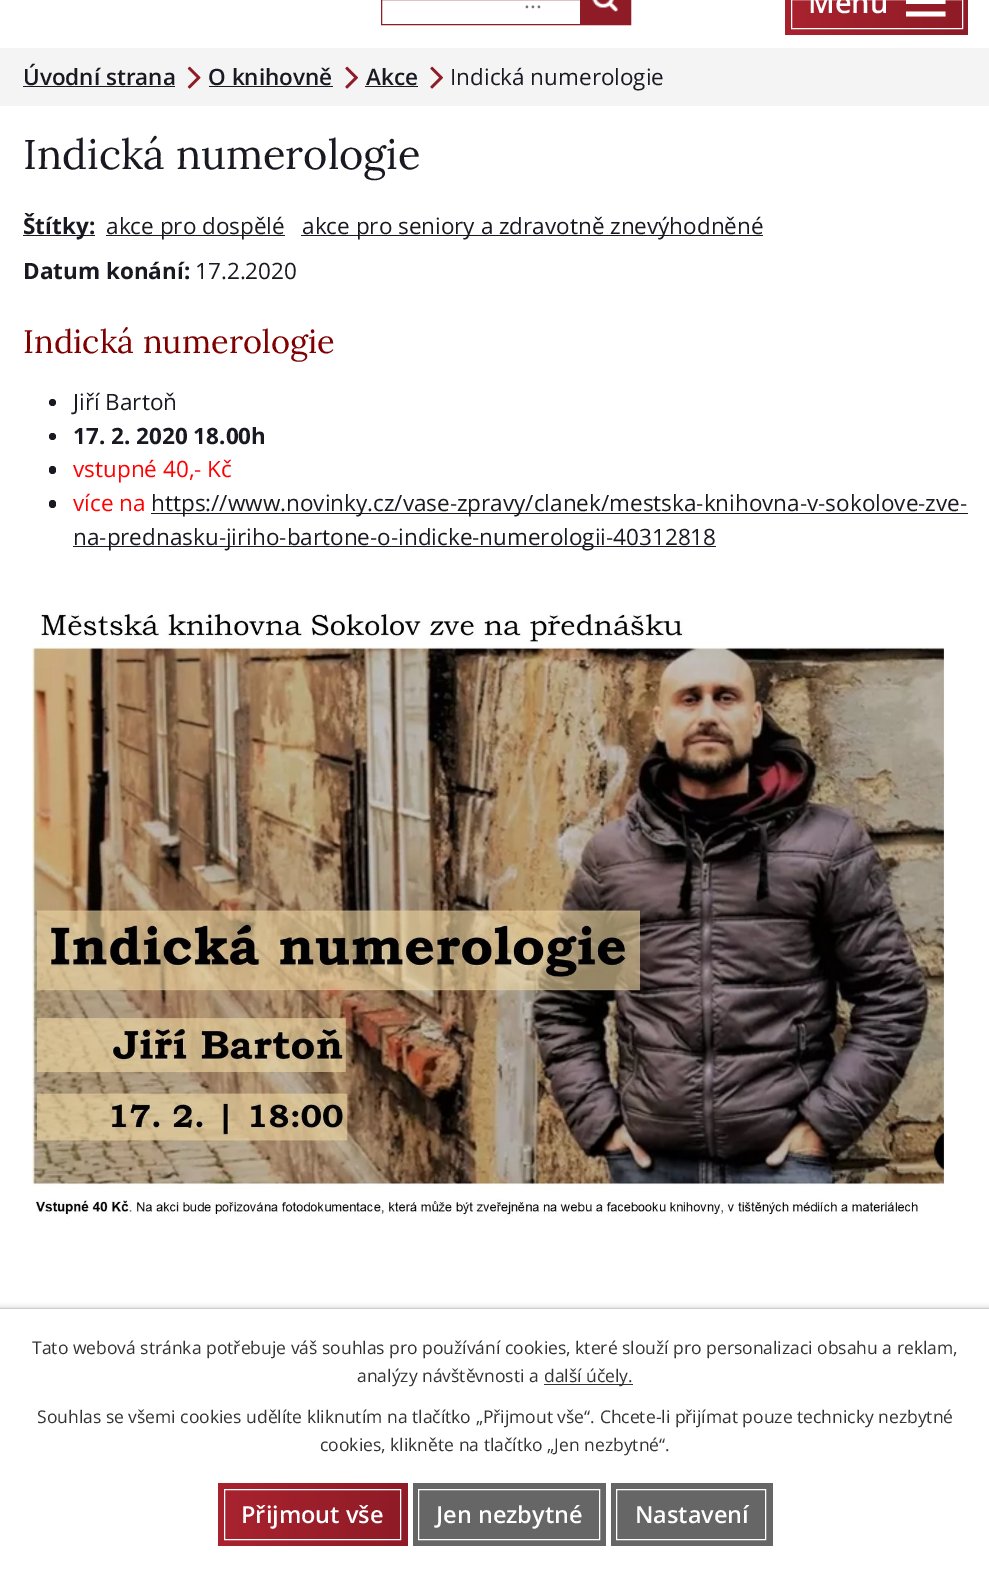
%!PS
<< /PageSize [989 1570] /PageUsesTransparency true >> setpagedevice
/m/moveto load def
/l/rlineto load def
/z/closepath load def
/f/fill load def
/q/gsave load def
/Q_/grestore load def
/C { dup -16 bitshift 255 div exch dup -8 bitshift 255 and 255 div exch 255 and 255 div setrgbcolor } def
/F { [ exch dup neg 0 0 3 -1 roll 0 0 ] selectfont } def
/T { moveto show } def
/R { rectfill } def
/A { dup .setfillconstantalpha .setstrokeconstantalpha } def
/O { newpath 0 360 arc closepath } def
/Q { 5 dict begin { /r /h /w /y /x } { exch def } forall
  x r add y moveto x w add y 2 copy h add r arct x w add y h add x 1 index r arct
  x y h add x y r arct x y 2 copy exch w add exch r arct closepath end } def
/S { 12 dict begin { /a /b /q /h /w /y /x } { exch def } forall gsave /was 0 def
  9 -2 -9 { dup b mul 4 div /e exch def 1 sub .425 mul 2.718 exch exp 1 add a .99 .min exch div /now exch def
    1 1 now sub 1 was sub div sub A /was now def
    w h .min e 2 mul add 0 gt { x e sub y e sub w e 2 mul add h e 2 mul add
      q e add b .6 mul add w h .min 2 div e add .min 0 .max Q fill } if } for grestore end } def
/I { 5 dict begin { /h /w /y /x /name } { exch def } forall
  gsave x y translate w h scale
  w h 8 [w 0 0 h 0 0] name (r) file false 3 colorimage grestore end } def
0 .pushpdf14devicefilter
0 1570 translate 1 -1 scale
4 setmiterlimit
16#FFFFFF C
0 0 989 1570 R
16#8E1B26 C
381.5 -.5 249 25 rectstroke
/OpenSans-Regular 22.5 F
16#757575 C
(...) 524 8 T
16#8E1B26 C
580 0 50 24 R
(1.rgb) 592 0 26 12 I
q 785 0 m 183 0 l 0 35 l -183 0 l z clip newpath
<< /ShadingType 2 /ColorSpace /DeviceRGB /Coords [785 2.5 968 2.5] /Extend [true true] /Function << /FunctionType 2 /Domain [0 1] /C0 [.663 .137 .184] /C1 [.557 .106 .149] /N 1 >> >> shfill Q_
16#FFFFFF C
791.5 -.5 171 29 rectstroke
/OpenSans-SemiBold 29 F
(Menu) 808 13 T
906 16.5 m 0 -5 l 39.5 0 l 0 5 l z 906 -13 m 39.5 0 l 0 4.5 l -39.5 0 l z 906 4 m 0 -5 l 39.5 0 l 0 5 l z f
16#F4F4F4 C
0 48 989 58 R
/OpenSans-SemiBold 22.5 F
16#191921 C
(Úvodní strana) 23 85 T
23 86 152 1 R
(2.rgb) 187 66 14 23 I
(O knihovně) 208 85 T
209 86 124 1 R
(3.rgb) 345 66 13 23 I
(Akce) 366 85 T
365 86 53 1 R
(3.rgb) 430 66 13 23 I
/OpenSans-Regular 22.5 F
(Indická numerologie) 450 85 T
/Lora-Regular 41.6 F
(Indická numerologie) 23 169 T
23 235 72 1 R
/OpenSans-Bold 22.5 F
(Štítky:) 23 234 T
106 235 179 1 R
/OpenSans-Regular 22.5 F
(akce pro dospělé) 106 234 T
301 235 462 1 R
(akce pro seniory a zdravotně znevýhodněné) 302 234 T
/OpenSans-Bold 22.5 F
(Datum konání:) 23 279 T
/OpenSans-Regular 22.5 F
(17.2.2020) 195 279 T
/Lora-Regular 32.6 F
16#800000 C
(Indická numerologie) 23 353 T
16#191921 C
52.5 402.5 3.5 O f
/OpenSans-Regular 22.5 F
(Jiří Bartoň) 73 410 T
52.5 436.5 3.5 O f
/OpenSans-Bold 22.5 F
(17. 2. 2020 18.00h) 73 444 T
49 466 7 8 3.5 Q f
/OpenSans-Regular 22.5 F
16#FF0000 C
(vstupné 40,- Kč) 73 477 T
16#191921 C
49 500 7 8 3.5 Q f
16#FF0000 C
(více na) 73 511 T
16#191921 C
151 513 817 1 R
(https://www.novinky.cz/vase-zpravy/clanek/mestska-knihovna-v-sokolove-zve-) 151 511 T
73 546 643 1 R
(na-prednasku-jiriho-bartone-o-indicke-numerologii-40312818) 73 545 T
(4.rgb) 31 613 914 605 I
16#000000 C
0 1308 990 262 0 3 .2 S
16#FFFFFF C
0 1309 989 261 R
16#CCCCCC C
0 1308 989 1 R
/OpenSans-Regular 17.5 F
16#333333 C
(Tato webová stránka potřebuje váš souhlas pro používání cookies, které slouží pro personalizaci obsahu a reklam,) 32 1354 T
(analýzy návštěvnosti a) 357 1382 T
544 1384 89 1 R
(další účely.) 544 1382 T
(Souhlas se všemi cookies udělíte kliknutím na tlačítko „Přijmout vše“. Chcete-li přijímat pouze technicky nezbytné) 37 1423 T
(cookies, klikněte na tlačítko „Jen nezbytné“.) 320 1451 T
q 218 1483 m 190 0 l 0 63 l -190 0 l z clip newpath
<< /ShadingType 2 /ColorSpace /DeviceRGB /Coords [218 1514 408 1514] /Extend [true true] /Function << /FunctionType 2 /Domain [0 1] /C0 [.663 .137 .184] /C1 [.557 .106 .149] /N 1 >> >> shfill Q_
16#FFFFFF C
224.5 1489.5 176 50 rectstroke
/OpenSans-SemiBold 23.5 F
(Přijmout vše) 241 1523 T
16#666666 C
413 1483 193 63 R
16#FFFFFF C
418.5 1489.5 181 50 rectstroke
(Jen nezbytné) 436 1523 T
16#666666 C
611 1483 162 63 R
16#FFFFFF C
616.5 1489.5 149 50 rectstroke
(Nastavení) 635 1523 T
.poppdf14devicefilter showpage
